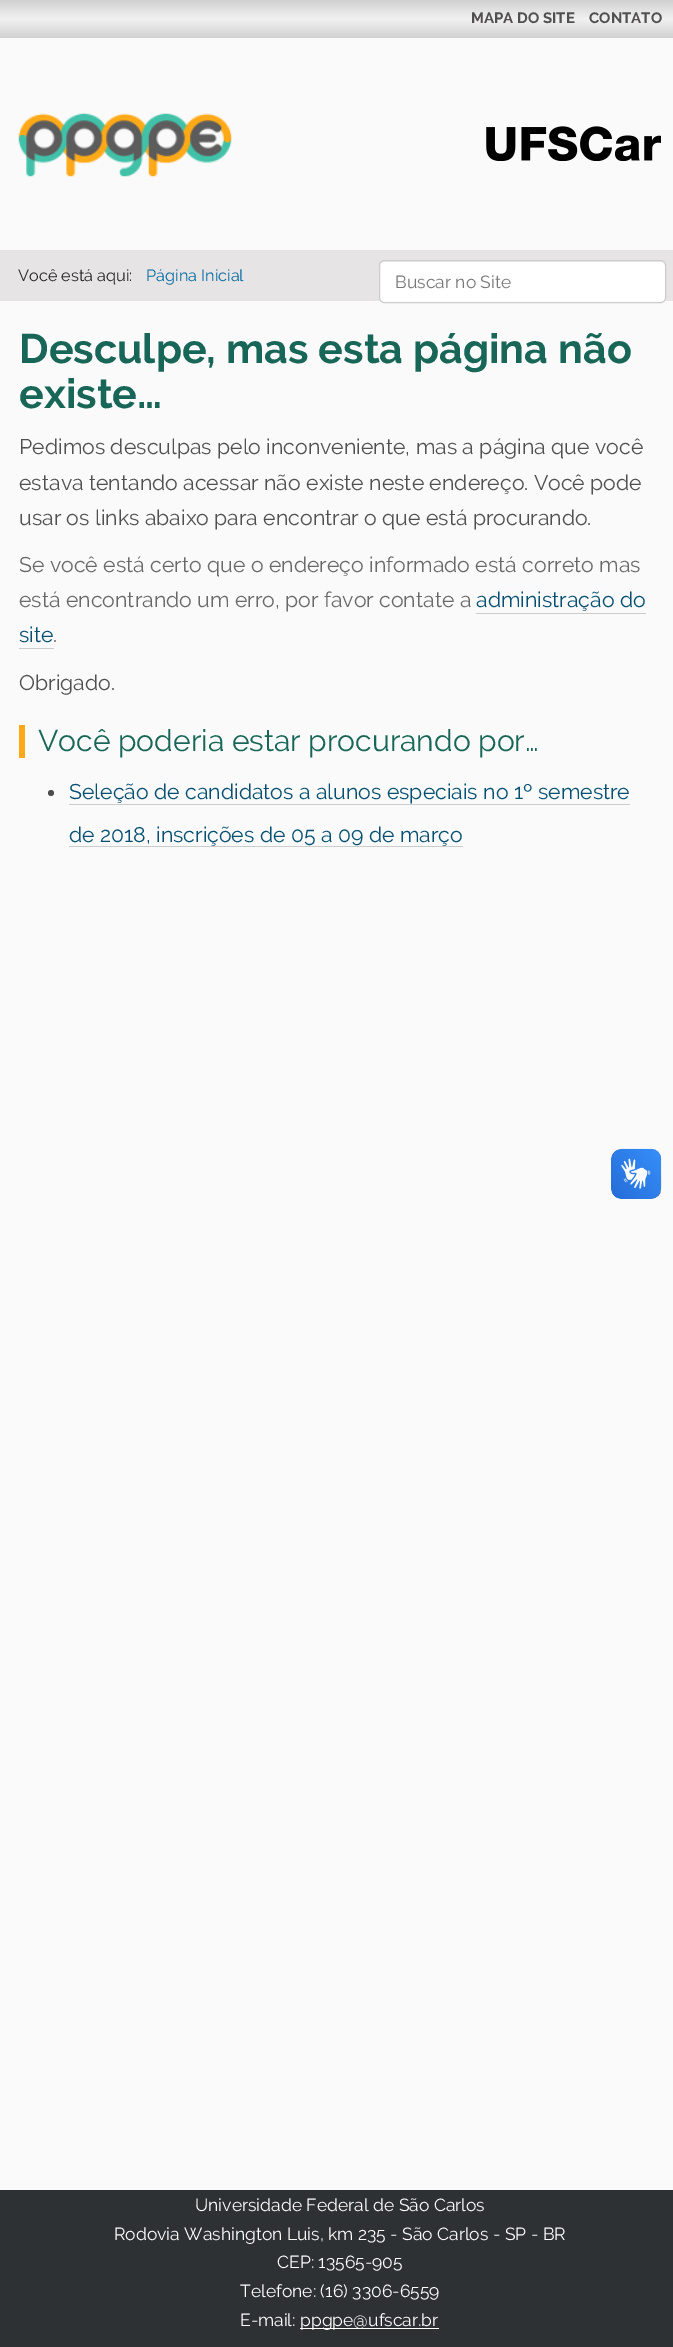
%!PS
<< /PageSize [673 2347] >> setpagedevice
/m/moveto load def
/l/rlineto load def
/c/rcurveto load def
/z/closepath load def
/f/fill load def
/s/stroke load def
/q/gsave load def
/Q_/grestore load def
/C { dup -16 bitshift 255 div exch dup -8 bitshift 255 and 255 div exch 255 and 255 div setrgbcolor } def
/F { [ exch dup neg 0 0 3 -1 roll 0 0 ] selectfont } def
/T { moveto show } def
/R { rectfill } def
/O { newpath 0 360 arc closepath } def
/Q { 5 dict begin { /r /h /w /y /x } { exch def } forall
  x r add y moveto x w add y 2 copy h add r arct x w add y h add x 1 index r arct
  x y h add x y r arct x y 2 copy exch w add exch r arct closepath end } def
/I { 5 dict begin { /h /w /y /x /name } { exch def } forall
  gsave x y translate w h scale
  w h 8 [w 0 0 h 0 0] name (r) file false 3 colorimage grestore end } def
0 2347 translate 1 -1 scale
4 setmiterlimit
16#FAFAFA C
0 0 673 2347 R
16#E6E4E4 C
0 250 673 51 R
/Raleway-Regular 16.25 F
16#282828 C
(Você está aqui:) 18 281 T
16#086CA3 C
(Página Inicial) 146 281 T
q 0 0 m 673 0 l 0 38 l -673 0 l z clip newpath
<< /ShadingType 2 /ColorSpace /DeviceRGB /Coords [337 0 337 38] /Extend [true true] /Function << /FunctionType 3 /Domain [0 1] /Functions [<< /FunctionType 2 /Domain [0 1] /C0 [.824 .82 .82] /C1 [.886 .882 .882] /N 1 >> << /FunctionType 2 /Domain [0 1] /C0 [.886 .882 .882] /C1 [.945 .945 .945] /N 1 >> << /FunctionType 2 /Domain [0 1] /C0 [.945 .945 .945] /C1 [.886 .882 .882] /N 1 >> << /FunctionType 2 /Domain [0 1] /C0 [.886 .882 .882] /C1 [.824 .82 .82] /N 1 >>] /Bounds [.25 .5 .75] /Encode [0 1 0 1 0 1 0 1] >> >> shfill Q_
/Raleway-Bold 15 F
16#514F4F C
(MAPA DO SITE) 471 23 T
(CONTATO) 589 23 T
(1.rgb) 18 113 214 64 I
(2.rgb) 486 126 175 35 I
16#FFFFFF C
379 260 287 43 5 Q f
16#ECECEC C
384 262 m 277 0 l 2 0 4 2 4 4 c 0 -3 -1 -5 -4 -5 c -277 0 l -3 0 -4 2 -4 5 c 0 -2 2 -4 4 -4 c z f
16#CCCCCC C
379.5 260.5 286 42 4.5 Q s
/Raleway-Regular 17.5 F
16#777777 C
(Buscar no Site) 395 288 T
/Raleway-Bold 41.25 F
16#186657 C
(Desculpe, mas esta página não) 19 363 T
(existe…) 19 408 T
/Raleway-Regular 21.25 F
16#514F4F C
(Pedimos desculpas pelo inconveniente, mas a página que você) 19 454 T
(estava tentando acessar não existe neste endereço. Você pode) 19 490 T
(usar os links abaixo para encontrar o que está procurando.) 19 525 T
16#696969 C
(Se você está certo que o endereço informado está correto mas) 19 572 T
(está encontrando um erro, por favor contate a) 19 607 T
16#044F71 C
(administração do) 476 607 T
16#CCCCCC C
476 613 170 1 R
16#044F71 C
(site) 19 642 T
16#CCCCCC C
19 648 35 1 R
16#696969 C
(.) 53 642 T
16#514F4F C
(Obrigado.) 19 690 T
16#FFA918 C
19 725 6 33 R
/Raleway-Regular 30 F
16#186657 C
(Você poderia estar procurando por…) 38 751 T
16#4D4D4D C
51 793 3 O f
/Raleway-Regular 21.25 F
16#044F71 C
(Seleção de candidatos a alunos especiais no 1º semestre) 69 799 T
16#CCCCCC C
69 804 561 1 R
16#044F71 C
(de 2018, inscrições de 05 a 09 de março) 69 842 T
16#CCCCCC C
69 846 394 1 R
(3.rgb) 611 1148 51 51 I
(4.rgb) 611 1149 50 50 I
16#2E3133 C
0 2190 673 157 R
/Raleway-Regular 17.5 F
16#FFFFFF C
(Universidade Federal de São Carlos) 195 2211 T
(Rodovia Washington Luis, km 235 - São Carlos - SP - BR) 114 2240 T
(CEP: 13565-905) 277 2268 T
(Telefone: \(16\) 3306-6559) 240 2297 T
(E-mail:) 240 2326 T
300 2328 139 1 R
(ppgpe@ufscar.br) 300 2326 T
showpage
